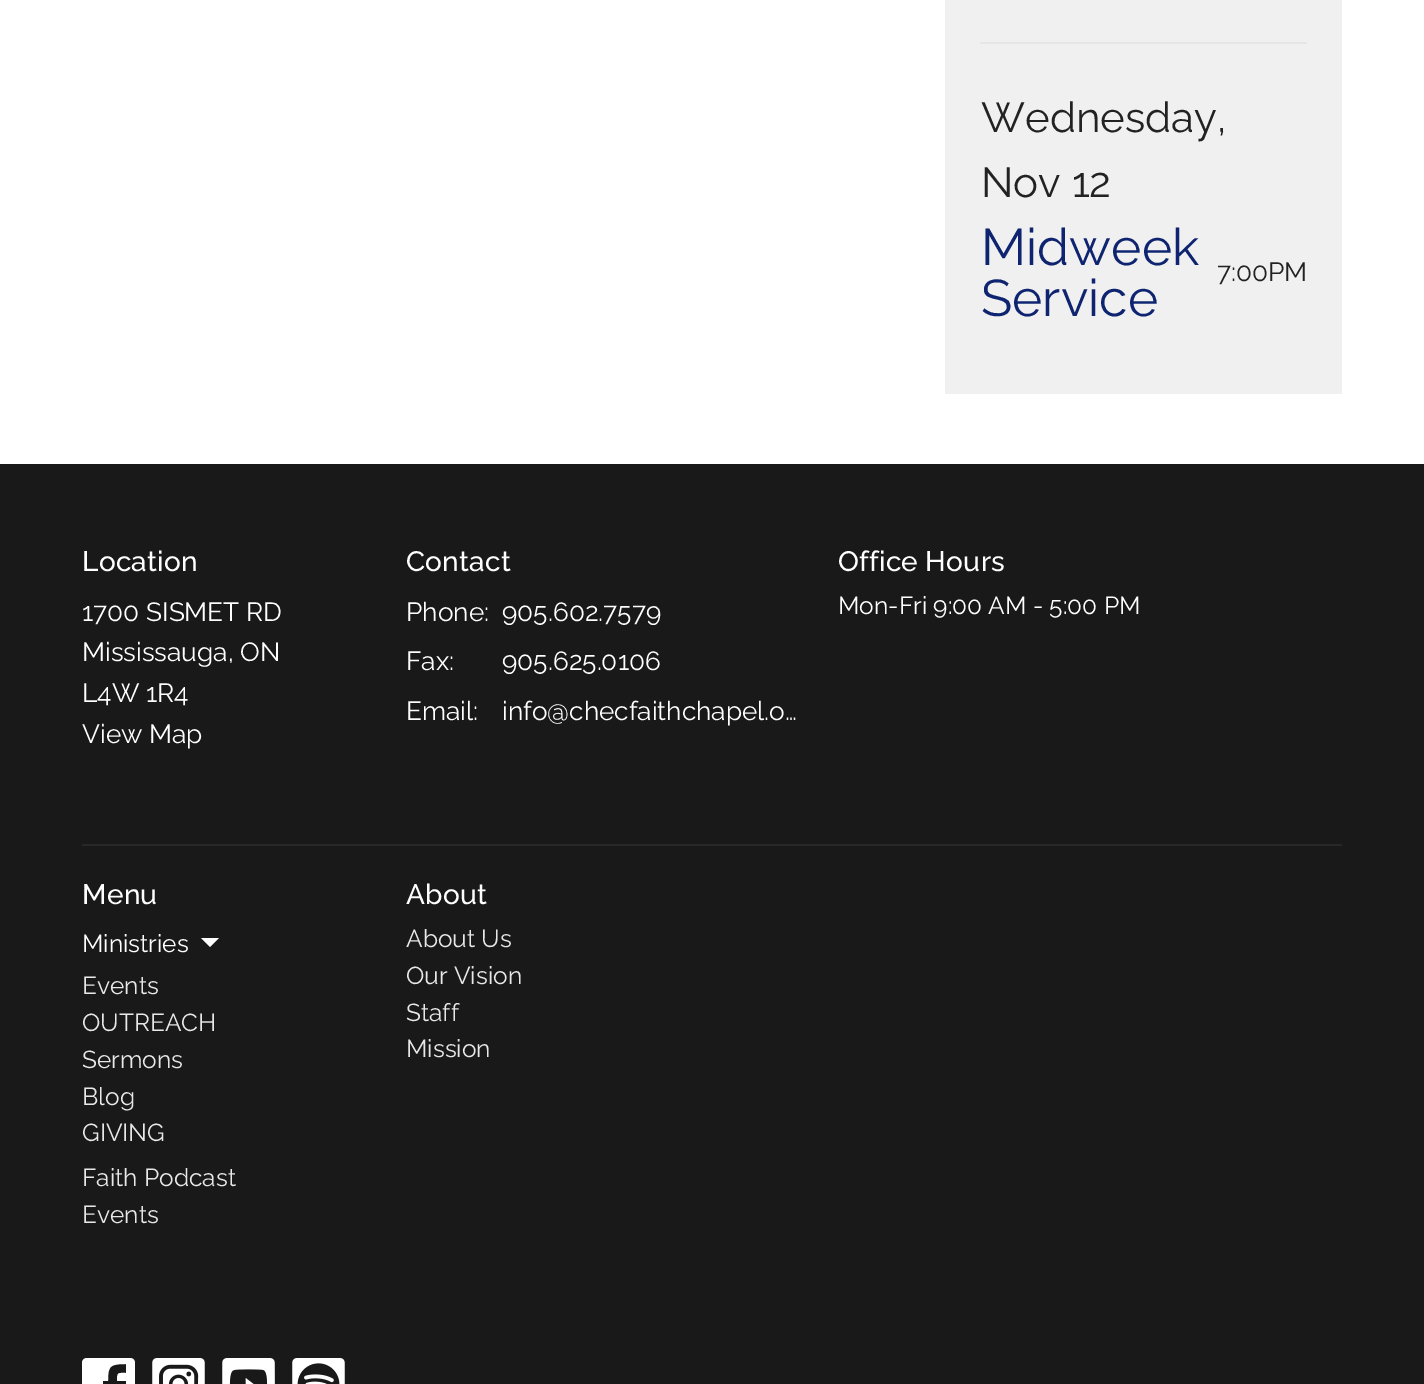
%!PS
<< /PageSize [1424 1384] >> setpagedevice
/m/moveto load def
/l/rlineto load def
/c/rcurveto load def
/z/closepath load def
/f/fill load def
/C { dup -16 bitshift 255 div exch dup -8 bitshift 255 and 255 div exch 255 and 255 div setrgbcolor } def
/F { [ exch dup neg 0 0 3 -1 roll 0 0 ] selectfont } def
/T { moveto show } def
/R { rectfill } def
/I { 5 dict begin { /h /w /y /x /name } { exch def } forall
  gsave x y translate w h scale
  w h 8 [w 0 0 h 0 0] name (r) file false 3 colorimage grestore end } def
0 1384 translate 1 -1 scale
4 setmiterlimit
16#FFFFFF C
0 0 1424 1384 R
16#F0F0F0 C
945 0 397 394 R
16#E6E6E6 C
980 42 327 2 R
/Raleway-Regular 42 F
16#222222 C
(Wednesday,) 981 132 T
(Nov 12) 981 197 T
/Raleway-Regular 51.5 F
16#0F2470 C
(Midweek) 981 265 T
(Service) 981 316 T
/Raleway-Regular 26.25 F
16#222222 C
(7:00PM) 1217 281 T
16#191919 C
0 464 1424 920 R
/Raleway-Medium 28 F
16#FFFFFF C
82 571 m .25 0 (Location) ashow
/Raleway-Regular 26.25 F
(1700 SISMET RD) 82 621 T
(Mississauga, ON) 82 661 T
(L4W 1R4) 82 702 T
(View Map) 82 743 T
/Raleway-Medium 28 F
406 571 m .25 0 (Contact) ashow
/Raleway-Regular 26.25 F
(Phone:) 406 621 T
(905.602.7579) 502 621 T
(Fax:) 406 670 T
(905.625.0106) 502 670 T
(Email:) 406 720 T
(info@checfaithchapel.o…) 502 720 T
/Raleway-Medium 28 F
838 571 m .25 0 (Office Hours) ashow
/Raleway-Regular 24.5 F
(Mon-Fri 9:00 AM - 5:00 PM) 838 614 T
16#282828 C
82 844 1260 2 R
/Raleway-Medium 28 F
16#FFFFFF C
82 904 m .25 0 (Menu) ashow
/Raleway-Regular 24.5 F
(Ministries) 82 952 T
201 938 m 9 9 l 9 -9 l z f
16#E8E8E8 C
(Events) 82 994 T
(OUTREACH) 82 1031 T
(Sermons) 82 1068 T
(Blog) 82 1105 T
(GIVING) 82 1141 T
(Faith Podcast) 82 1186 T
(Events) 82 1223 T
/Raleway-Medium 28 F
16#FFFFFF C
406 904 m .25 0 (About) ashow
/Raleway-Regular 24.5 F
16#E8E8E8 C
(About Us) 406 947 T
(Our Vision) 406 984 T
(Staff) 406 1021 T
(Mission) 406 1057 T
16#FFFFFF C
126 1364 m 0 9 l -8 0 -9 -1 -9 8 c 9 0 l 0 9 l -9 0 l 0 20 l 16 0 l 1 -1 2 -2 2 -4 c 0 -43 l 0 -3 -2 -5 -5 -5 c -43 0 l -3 0 -5 2 -5 5 c 0 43 l 0 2 1 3 2 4 c 24 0 l 0 -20 l -5 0 l 0 -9 l 5 0 l 0 -15 2 -17 18 -17 c z f
(1.rgb) 152 1358 53 26 I
(2.rgb) 222 1358 53 26 I
(3.rgb) 292 1358 53 26 I
showpage
